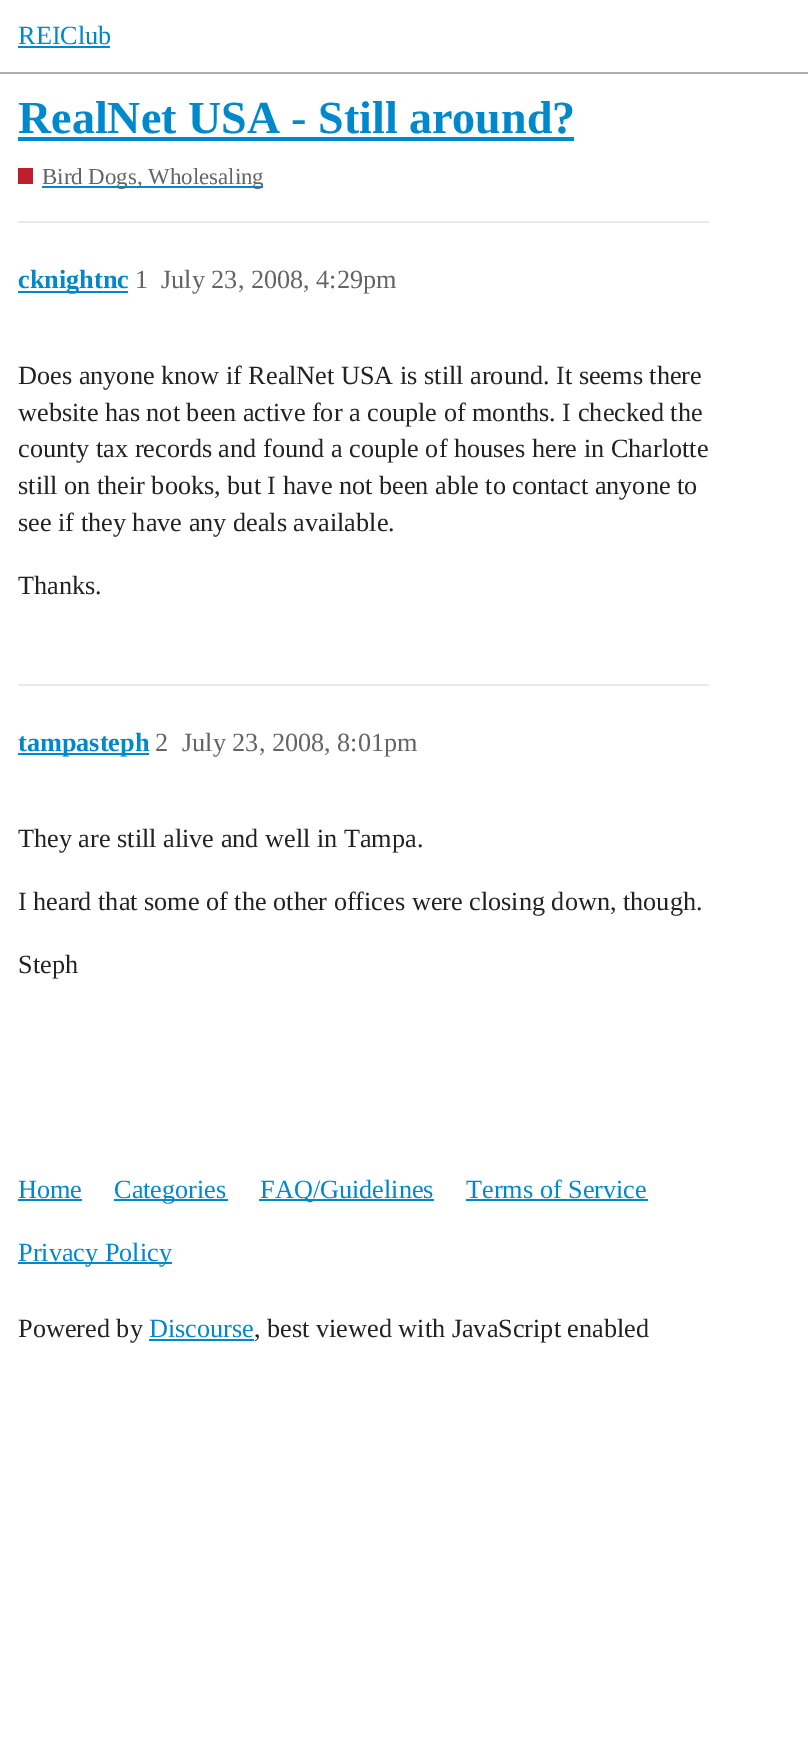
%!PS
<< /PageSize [808 1746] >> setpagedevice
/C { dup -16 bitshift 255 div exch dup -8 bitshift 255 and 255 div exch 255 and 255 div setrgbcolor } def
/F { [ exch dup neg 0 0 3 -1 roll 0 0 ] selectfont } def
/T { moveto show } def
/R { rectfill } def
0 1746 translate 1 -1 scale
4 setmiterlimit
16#FFFFFF C
0 0 808 1746 R
16#AFAFAF C
0 72 808 2 R
/LiberationSerif-Regular 26.25 F
16#0088CC C
(REIClub) 18 44 T
18 46 92 2 R
/LiberationSerif-Bold 46 F
(RealNet USA - Still around?) 18 133 T
18 137 556 4 R
16#BF1E2E C
18 168 15 16 R
16#0088CC C
42 186 221 2 R
/LiberationSerif-Regular 22.9 F
16#646464 C
(Bird Dogs, Wholesaling) 42 184 T
16#E9E9E9 C
18 221 691 2 R
16#0088CC C
18 291 110 2 R
/LiberationSerif-Bold 26.25 F
(cknightnc) 18 288 T
/LiberationSerif-Regular 26.25 F
16#646464 C
(1) 135 288 T
(July 23, 2008, 4:29pm) 161 288 T
16#222222 C
(Does anyone know if RealNet USA is still around. It seems there) 18 384 T
(website has not been active for a couple of months. I checked the) 18 421 T
(county tax records and found a couple of houses here in Charlotte) 18 457 T
(still on their books, but I have not been able to contact anyone to) 18 494 T
(see if they have any deals available.) 18 531 T
(Thanks.) 18 594 T
16#E9E9E9 C
18 684 691 2 R
16#0088CC C
18 753 131 2 R
/LiberationSerif-Bold 26.25 F
(tampasteph) 18 751 T
/LiberationSerif-Regular 26.25 F
16#646464 C
(2) 155 751 T
(July 23, 2008, 8:01pm) 182 751 T
16#222222 C
(They are still alive and well in Tampa.) 18 847 T
(I heard that some of the other offices were closing down, though.) 18 910 T
(Steph) 18 973 T
16#0088CC C
(Home) 18 1198 T
18 1199 64 2 R
114 1199 114 2 R
(Categories) 114 1198 T
259 1199 175 2 R
(FAQ/Guidelines) 260 1198 T
(Terms of Service) 466 1198 T
466 1199 182 2 R
18 1262 154 2 R
(Privacy Policy) 18 1261 T
16#222222 C
(Powered by) 18 1337 T
16#0088CC C
(Discourse) 149 1337 T
149 1339 105 2 R
16#222222 C
(, best viewed with JavaScript enabled) 254 1337 T
showpage
